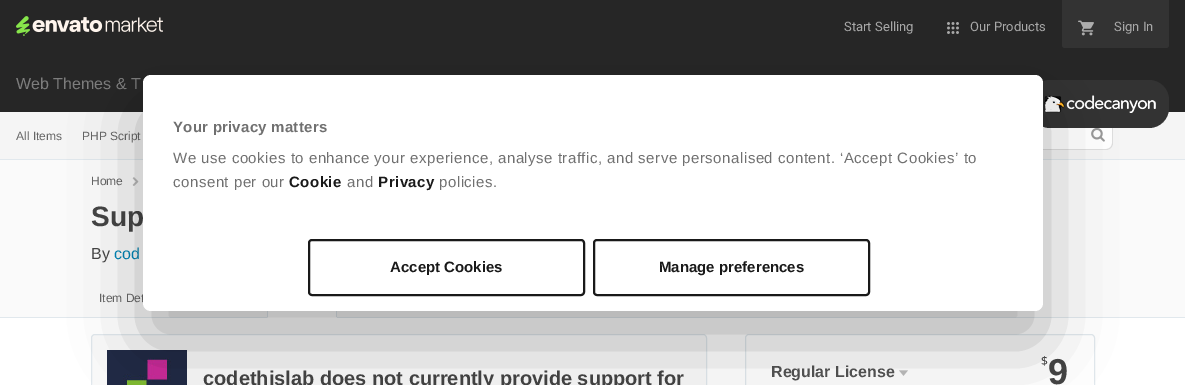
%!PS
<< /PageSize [1185 385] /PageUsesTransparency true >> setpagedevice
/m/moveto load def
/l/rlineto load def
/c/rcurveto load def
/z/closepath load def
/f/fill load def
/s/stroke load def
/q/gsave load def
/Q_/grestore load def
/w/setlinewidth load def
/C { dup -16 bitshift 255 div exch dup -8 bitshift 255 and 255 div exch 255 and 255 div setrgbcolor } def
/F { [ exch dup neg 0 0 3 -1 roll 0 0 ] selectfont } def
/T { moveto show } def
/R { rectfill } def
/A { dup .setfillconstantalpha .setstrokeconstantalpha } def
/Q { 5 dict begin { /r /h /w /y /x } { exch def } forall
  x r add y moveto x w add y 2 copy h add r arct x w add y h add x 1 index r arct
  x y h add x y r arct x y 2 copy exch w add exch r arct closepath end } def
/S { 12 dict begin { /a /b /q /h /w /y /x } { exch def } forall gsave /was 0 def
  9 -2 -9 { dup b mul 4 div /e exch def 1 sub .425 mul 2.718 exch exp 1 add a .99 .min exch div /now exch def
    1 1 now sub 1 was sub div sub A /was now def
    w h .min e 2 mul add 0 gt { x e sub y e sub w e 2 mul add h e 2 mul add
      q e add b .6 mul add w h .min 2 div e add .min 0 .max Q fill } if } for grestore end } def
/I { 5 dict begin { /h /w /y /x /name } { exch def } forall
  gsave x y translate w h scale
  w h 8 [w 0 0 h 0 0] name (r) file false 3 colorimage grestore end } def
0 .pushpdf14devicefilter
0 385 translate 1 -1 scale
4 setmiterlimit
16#FFFFFF C
0 0 1185 385 R
16#262626 C
0 0 1185 112 R
(1.rgb) 16 16 147 20 I
/Roboto-Regular 13 F
16#A8A8A8 C
(Start Selling) 844 31 T
(2.rgb) 947 22 12 12 I
(Our Products) 970 31 T
16#333333 C
1062 0 m 40 0 l 0 48 l -37 0 l -1.5 0 -3 -1.5 -3 -3 c z f
(3.rgb) 1078 20 16 16 I
1102 0 m 67 0 l 0 45 l 0 1.5 -1.5 3 -3 3 c -64 0 l z f
16#A8A8A8 C
(Sign In) 1114 31 T
/LiberationSans-Regular 16 F
16#7D7D7D C
(Web Themes & T) 16 89 T
16#F5F5F5 C
0 112 1185 47 R
16#FFFFFF C
1043 126 40 23 R
16#DEDEDE C
977 120 m 106 0 l 0 30 l -106 0 l -4 0 -7 -3 -7 -7 c 0 -16 l 0 -4 3 -7 7 -7 c z 977 121 m 106 0 l 0 28 l -106 0 l -3 0 -6 -3 -6 -6 c 0 -16 l 0 -3 3 -6 6 -6 c z eofill
16#FFFFFF C
1083 120 m 23 0 l 4 0 7 3 7 7 c 0 16 l 0 4 -3 7 -7 7 c -23 0 l z f
16#DEDEDE C
1083 120 m 23 0 l 4 0 7 3 7 7 c 0 16 l 0 4 -3 7 -7 7 c -23 0 l z 1083 121 m 23 0 l 3.5 0 6 2.5 6 6 c 0 16 l 0 3.5 -2.5 6 -6 6 c -23 0 l z eofill
16#333333 C
1030 80 139 48 20 Q f
(4.rgb) 1044 95 112 18 I
16#E1E8ED C
0 159 1185 1 R
/LiberationSans-Regular 12 F
16#666666 C
(All Items) 16 140 T
(PHP Script) 82 140 T
(5.rgb) 1091 128 14 14 I
16#FAFAFA C
0 160 1185 157 R
16#E1E8ED C
0 317 1185 1 R
16#666666 C
(Home) 91 185 T
(6.rgb) 132 177 7 9 I
/LiberationSans-Bold 28 F
16#454545 C
(Sup) 91 226 T
/LiberationSans-Regular 16 F
(By) 91 259 T
16#0084B4 C
(cod) 114 259 T
/LiberationSans-Regular 12 F
16#666666 C
(Item Det) 99 302 T
16#FFFFFF C
267 311 70 7 R
16#E1E8ED C
337 318 m 0 -36 l -.5 -1.5 l -.5 .5 l 0 36 l z f
16#FFFFFF C
337 318 m -1 -1 l -68 0 l -1 1 l z f
16#E1E8ED C
267 318 m 1 -1 l 0 -35 l .5 -.5 l -1 -1 l -.5 1.5 l z f
16#FAFAFA C
91.5 334.5 615 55 3.5 Q q f Q_
16#E1E8ED C
s
(7.rgb) 107 350 80 35 I
/LiberationSans-Bold 20 F
16#454545 C
(codethislab does not currently provide support for) 203 385 T
16#E1E8ED C
745.5 334.5 349 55 3.5 Q s
/LiberationSans-Bold 16 F
16#545454 C
(Regular License) 771 377 T
(8.rgb) 899 370 9 6 I
/NotoSans-Regular 12 F
16#454545 C
($) 1041 365 T
/LiberationSans-Bold 36 F
(9) 1048 384 T
16#000000 C
143 107 900 236 8 34 .3 S
16#FFFFFF C
143 75 900 236 8 Q f
/LiberationSans-Bold 15 F
16#707070 C
173 132 m .25 0 (Your privacy matters) ashow
/LiberationSans-Regular 15 F
173 163 m .5 0 (We use cookies to enhance your experience, analyse traffic, and serve personalised content. ‘Accept Cookies’ to) ashow
173 187 m .5 0 (consent per our) ashow
/LiberationSans-Bold 15 F
16#191919 C
289 187 m .5 0 (Cookie) ashow
/LiberationSans-Regular 15 F
16#707070 C
347 187 m .5 0 (and) ashow
/LiberationSans-Bold 15 F
16#191919 C
378 187 m .5 0 (Privacy) ashow
/LiberationSans-Regular 15 F
16#707070 C
439 187 m .5 0 (policies.) ashow
16#191919 C
2 w
309 240 275 55 3 Q s
/LiberationSans-Bold 15 F
(Accept Cookies) 390 272 T
594 240 275 55 3 Q s
(Manage preferences) 659 272 T
.poppdf14devicefilter showpage
